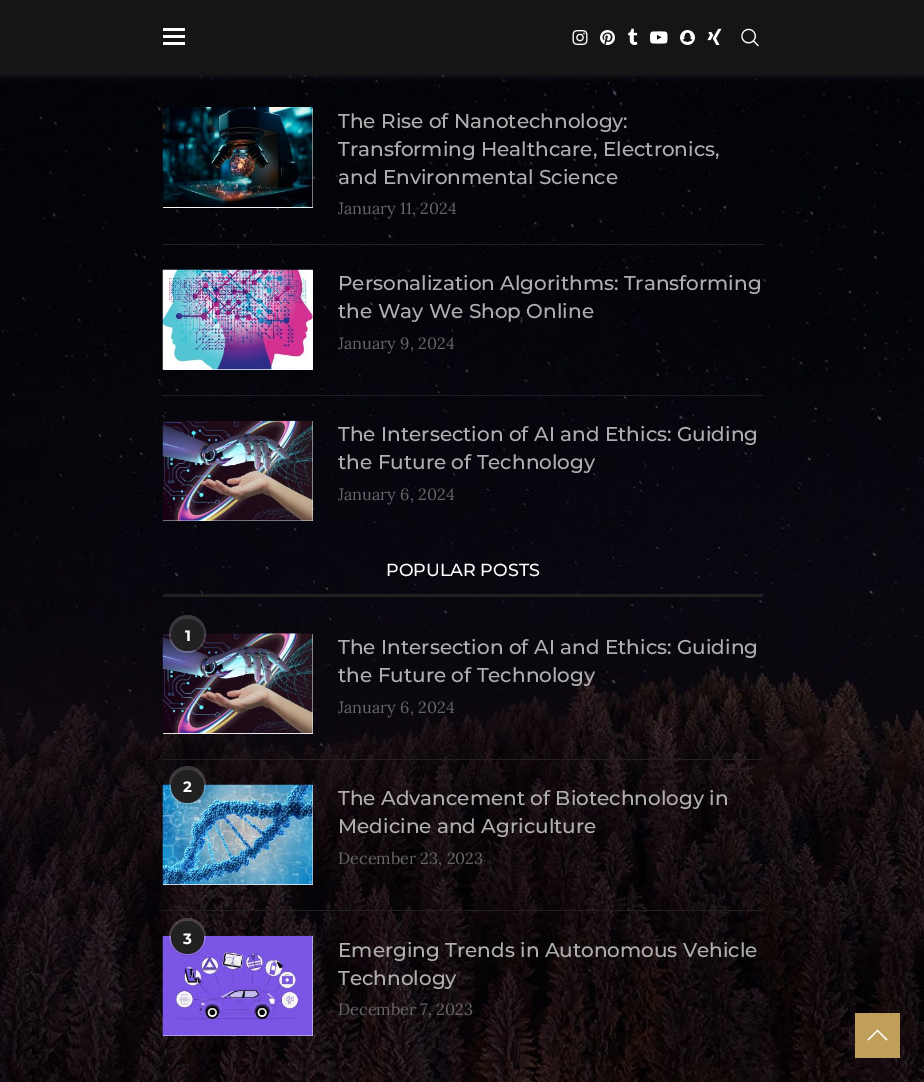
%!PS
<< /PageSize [924 1082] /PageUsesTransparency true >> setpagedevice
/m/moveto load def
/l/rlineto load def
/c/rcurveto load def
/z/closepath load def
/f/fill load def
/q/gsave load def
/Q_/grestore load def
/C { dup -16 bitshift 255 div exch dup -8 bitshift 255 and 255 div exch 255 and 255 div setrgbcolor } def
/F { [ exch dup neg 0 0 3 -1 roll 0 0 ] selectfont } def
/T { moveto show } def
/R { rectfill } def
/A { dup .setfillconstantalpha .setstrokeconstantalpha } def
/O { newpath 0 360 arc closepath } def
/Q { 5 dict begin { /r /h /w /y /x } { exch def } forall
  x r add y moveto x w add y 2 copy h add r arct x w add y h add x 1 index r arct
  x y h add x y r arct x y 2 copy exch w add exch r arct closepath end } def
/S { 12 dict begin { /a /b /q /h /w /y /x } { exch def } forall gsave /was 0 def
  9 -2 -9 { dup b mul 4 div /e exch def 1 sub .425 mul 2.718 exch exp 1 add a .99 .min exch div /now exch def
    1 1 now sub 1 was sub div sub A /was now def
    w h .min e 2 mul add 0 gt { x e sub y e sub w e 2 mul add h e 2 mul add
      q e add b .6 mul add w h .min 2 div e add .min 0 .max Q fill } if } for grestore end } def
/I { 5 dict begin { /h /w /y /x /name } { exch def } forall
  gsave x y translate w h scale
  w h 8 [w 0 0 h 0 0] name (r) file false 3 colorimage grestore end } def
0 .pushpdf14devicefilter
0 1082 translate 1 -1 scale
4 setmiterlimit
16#FFFFFF C
0 0 924 1082 R
(8.rgb) 0 75 924 1007 I
0 1 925 75 0 3 .08 S
16#151515 C
0 0 924 75 R
16#FFFFFF C
163 28 22 3 R
163 35 22 3 R
163 42 22 3 R
(1.rgb) 572 30 16 15 I
(2.rgb) 600 30 15 15 I
(3.rgb) 628 28 10 17 I
(4.rgb) 650 31 18 13 I
(5.rgb) 680 30 15 15 I
(6.rgb) 707 28 15 17 I
(7.rgb) 741 28 18 19 I
16#212121 C
163 244 600 1 R
16#F5F5F5 C
163 108 150 100 R
(9.rgb) 162 107 151 100 I
/Montserrat-Medium 20 F
16#AFAFAF C
(The Rise of Nanotechnology:) 338 128 T
(Transforming Healthcare, Electronics,) 338 156 T
(and Environmental Science) 338 184 T
/Lora-Regular 16.25 F
16#666666 C
(January 11, 2024) 338 214 T
16#212121 C
163 395 600 1 R
16#F5F5F5 C
163 270 150 100 R
(10.rgb) 162 269 151 101 I
/Montserrat-Medium 20 F
16#AFAFAF C
(Personalization Algorithms: Transforming) 338 290 T
(the Way We Shop Online) 338 318 T
/Lora-Regular 16.25 F
16#666666 C
(January 9, 2024) 338 349 T
16#F5F5F5 C
163 421 150 100 R
(11.rgb) 162 420 151 101 I
/Montserrat-Medium 20 F
16#AFAFAF C
(The Intersection of AI and Ethics: Guiding) 338 441 T
(the Future of Technology) 338 469 T
/Lora-Regular 16.25 F
16#666666 C
(January 6, 2024) 338 500 T
16#212121 C
163 594 600 3 R
/Montserrat-Medium 17.5 F
16#FFFFFF C
(POPULAR POSTS) 386 576 T
16#212121 C
163 759 600 1 R
16#F5F5F5 C
163 634 150 100 R
(12.rgb) 162 633 151 101 I
q
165 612 m 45 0 l 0 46 l -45 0 l z 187.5 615 m 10 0 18.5 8.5 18.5 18.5 c 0 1 l 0 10 -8.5 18.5 -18.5 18.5 c -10 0 -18.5 -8.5 -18.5 -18.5 c 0 -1 l 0 -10 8.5 -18.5 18.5 -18.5 c z eoclip newpath
16#000000 C
169 616 37 38 18.5 1 .1 S
Q_
0.2 A
16#FFFFFF C
169 615 37 38 18.5 Q f
1 A
16#212121 C
171 619 33 32 16 Q f
/Montserrat-Bold 15 F
16#FFFFFF C
(1) 185 641 T
/Montserrat-Medium 20 F
16#AFAFAF C
(The Intersection of AI and Ethics: Guiding) 338 654 T
(the Future of Technology) 338 682 T
/Lora-Regular 16.25 F
16#666666 C
(January 6, 2024) 338 713 T
16#212121 C
163 910 600 1 R
16#F5F5F5 C
163 785 150 100 R
(13.rgb) 162 784 151 101 I
q
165 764 m 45 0 l 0 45 l -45 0 l z 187.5 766 m 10 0 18.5 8.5 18.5 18.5 c 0 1 l 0 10 -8.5 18.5 -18.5 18.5 c -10 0 -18.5 -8.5 -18.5 -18.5 c 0 -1 l 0 -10 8.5 -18.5 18.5 -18.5 c z eoclip newpath
16#000000 C
169 768 37 37 18.5 1 .1 S
Q_
0.2 A
16#FFFFFF C
169 766 37 38 18.5 Q f
1 A
16#212121 C
187.5 786.5 16.5 O f
/Montserrat-Bold 15 F
16#FFFFFF C
(2) 183 792 T
/Montserrat-Medium 20 F
16#AFAFAF C
(The Advancement of Biotechnology in) 338 805 T
(Medicine and Agriculture) 338 833 T
/Lora-Regular 16.25 F
16#666666 C
(December 23, 2023) 338 864 T
16#F5F5F5 C
163 936 150 100 R
(14.rgb) 162 935 151 101 I
q
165 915 m 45 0 l 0 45 l -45 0 l z 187.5 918 m 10 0 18.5 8.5 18.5 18.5 c 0 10 -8.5 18.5 -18.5 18.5 c -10 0 -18.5 -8.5 -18.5 -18.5 c 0 -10 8.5 -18.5 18.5 -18.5 c z eoclip newpath
16#000000 C
169 919 37 37 18.5 1 .1 S
Q_
0.2 A
16#FFFFFF C
187.5 936.5 18.5 O f
1 A
16#212121 C
187.5 937.5 16.5 O f
/Montserrat-Bold 15 F
16#FFFFFF C
(3) 183 944 T
/Montserrat-Medium 20 F
16#AFAFAF C
(Emerging Trends in Autonomous Vehicle) 338 957 T
(Technology) 338 985 T
/Lora-Regular 16.25 F
16#666666 C
(December 7, 2023) 338 1015 T
16#BF9F5A C
855 1013 45 45 R
16#FFFFFF C
877.5 1029.5 m -10 10 l 1 1 l 9 -9 l 9 9 l 1 -1 l z f
.poppdf14devicefilter showpage
